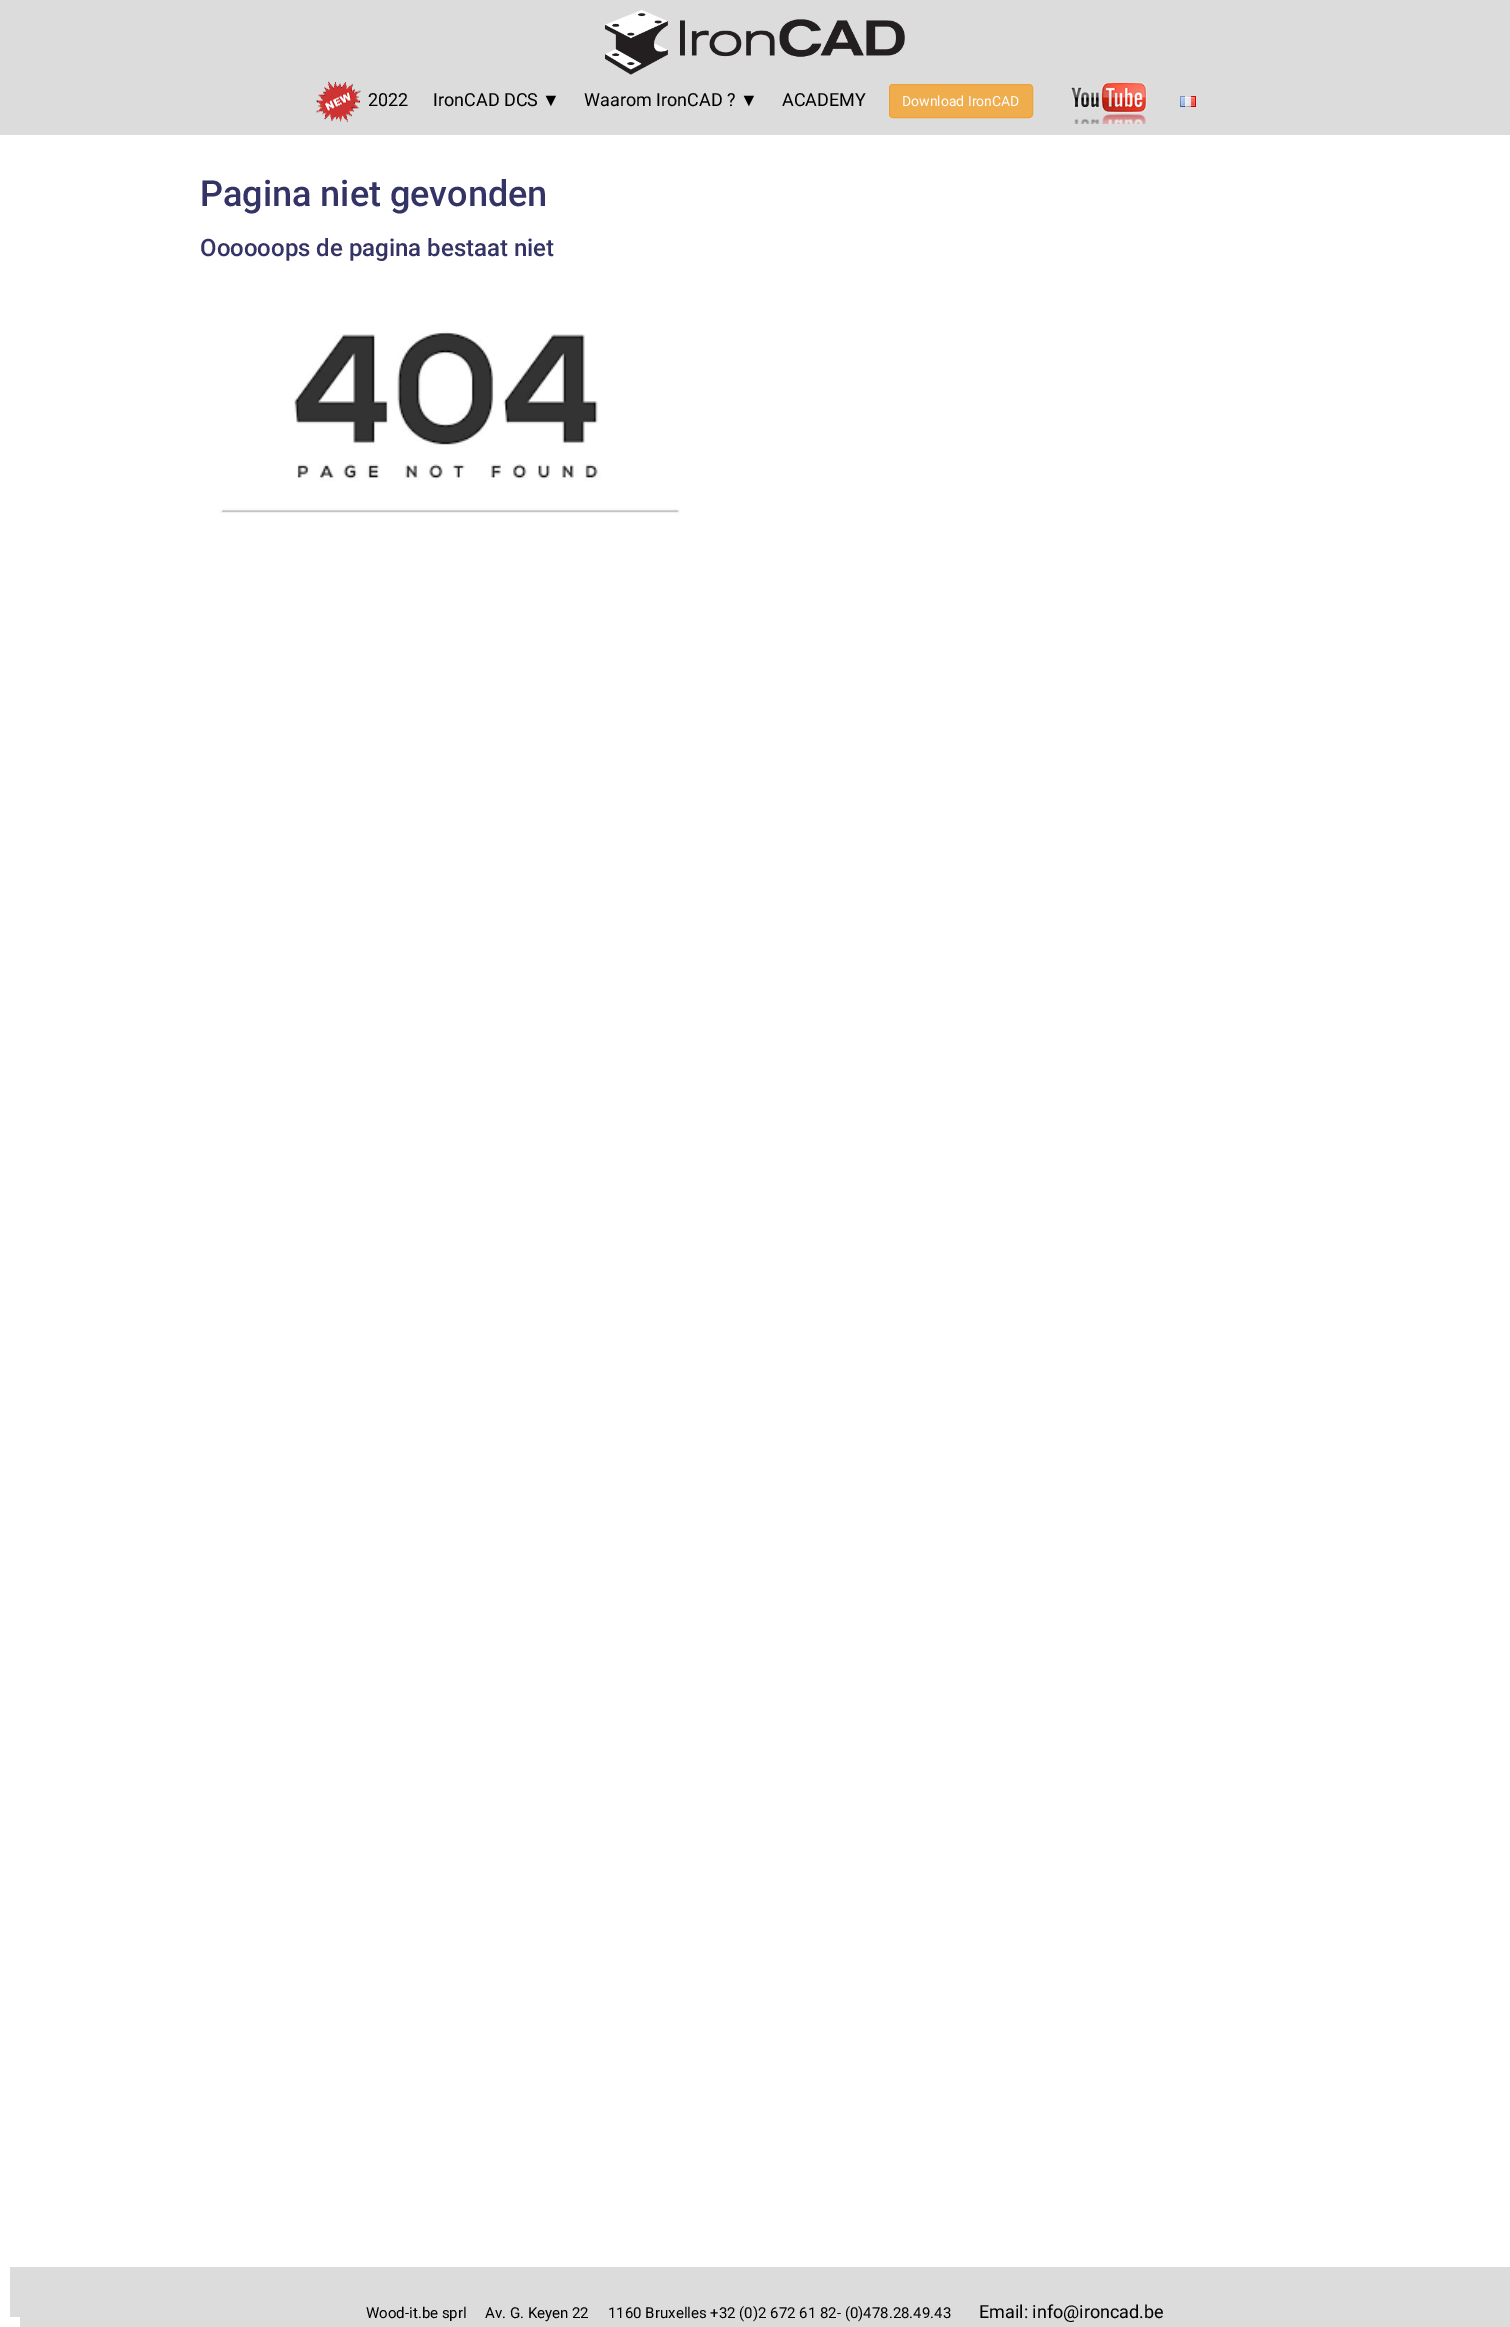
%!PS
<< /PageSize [1510 2327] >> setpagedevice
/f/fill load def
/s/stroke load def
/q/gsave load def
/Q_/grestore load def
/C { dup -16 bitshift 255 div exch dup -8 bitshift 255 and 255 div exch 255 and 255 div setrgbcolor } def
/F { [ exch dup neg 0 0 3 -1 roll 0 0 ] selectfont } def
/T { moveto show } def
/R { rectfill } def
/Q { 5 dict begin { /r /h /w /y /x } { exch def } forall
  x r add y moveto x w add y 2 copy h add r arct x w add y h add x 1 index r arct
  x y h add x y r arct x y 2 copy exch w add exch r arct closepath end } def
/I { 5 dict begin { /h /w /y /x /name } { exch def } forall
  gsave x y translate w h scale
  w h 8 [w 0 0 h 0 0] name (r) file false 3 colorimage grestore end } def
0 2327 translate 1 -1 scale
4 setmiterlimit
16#FFFFFF C
0 0 1510 2327 R
16#DCDCDC C
0 0 1510 135 R
(1.rgb) 605 10 300 65 I
(2.rgb) 316 81 45 42 I
/Roboto-Regular 18 F
16#000000 C
(2022) 368 106 T
(IronCAD DCS) 433 106 T
/LiberationSans-Regular 18 F
(▼) 542 106 T
/Roboto-Regular 18 F
(Waarom IronCAD ?) 584 106 T
/LiberationSans-Regular 18 F
(▼) 740 106 T
/Roboto-Regular 18 F
(ACADEMY) 782 106 T
16#F0AD4E C
889.5 84.5 143 33 3.5 Q q f Q_
16#EEA236 C
s
/Roboto-Regular 14 F
16#FFFFFF C
(Download IronCAD) 902 106 T
(3.rgb) 1071 82 76 42 I
(4.rgb) 1180 96 16 11 I
/Roboto-Medium 36 F
16#333366 C
(Pagina niet gevonden) 200 206 T
/Roboto-Medium 24 F
(Oooooops de pagina bestaat niet) 200 256 T
(5.rgb) 219 331 461 183 I
16#DCDCDC C
10 2267 1500 50 R
20 2317 1490 10 R
/Roboto-Regular 15 F
16#000000 C
(Wood-it.be sprl) 366 2318 T
(Av. G. Keyen 22) 485 2318 T
(1160 Bruxelles +32 \(0\)2 672 61 82- \(0\)478.28.49.43) 608 2318 T
/Roboto-Regular 18 F
(Email: info@ironcad.be) 979 2318 T
showpage
